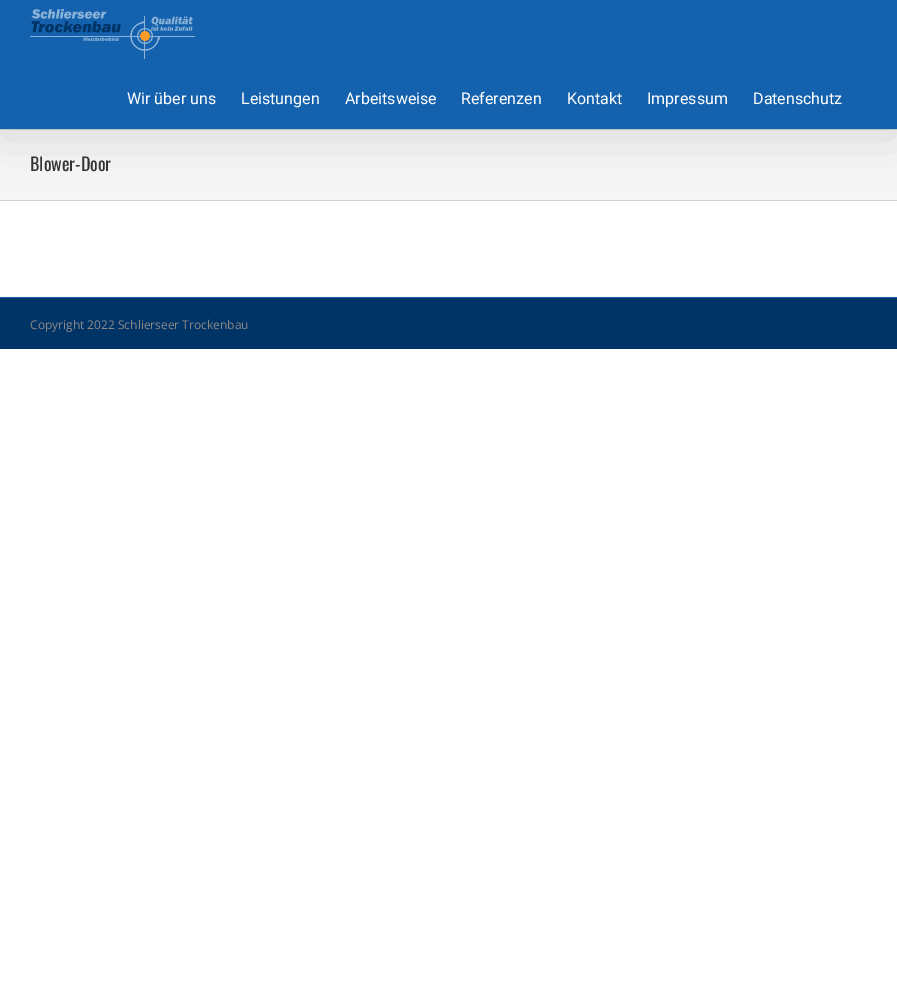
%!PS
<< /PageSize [897 981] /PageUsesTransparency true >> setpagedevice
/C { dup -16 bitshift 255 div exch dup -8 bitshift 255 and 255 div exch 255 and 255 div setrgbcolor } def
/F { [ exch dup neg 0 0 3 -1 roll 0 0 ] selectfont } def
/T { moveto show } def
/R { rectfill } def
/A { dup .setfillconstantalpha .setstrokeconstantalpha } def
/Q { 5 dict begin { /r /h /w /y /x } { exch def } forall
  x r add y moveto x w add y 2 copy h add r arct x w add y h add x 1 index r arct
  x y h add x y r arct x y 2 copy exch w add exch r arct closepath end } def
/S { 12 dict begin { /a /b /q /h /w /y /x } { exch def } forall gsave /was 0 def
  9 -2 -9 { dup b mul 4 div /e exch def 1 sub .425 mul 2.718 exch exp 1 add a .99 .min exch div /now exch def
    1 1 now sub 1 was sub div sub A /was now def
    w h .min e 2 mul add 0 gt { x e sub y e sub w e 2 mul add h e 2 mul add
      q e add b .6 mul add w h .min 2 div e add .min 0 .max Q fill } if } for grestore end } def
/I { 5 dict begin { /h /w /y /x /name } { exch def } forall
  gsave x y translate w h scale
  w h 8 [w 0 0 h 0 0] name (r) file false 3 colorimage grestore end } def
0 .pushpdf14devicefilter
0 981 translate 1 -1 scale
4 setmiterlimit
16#FFFFFF C
0 0 897 981 R
16#F6F6F6 C
0 130 897 70 R
16#D2D3D4 C
0 129 897 1 R
0 200 897 1 R
16#000000 C
2 12 893 125 0 25 .14 S
16#1462AD C
0 0 897 129 R
(1.rgb) 30 9 165 50 I
/Roboto-Regular 16 F
16#FFFFFF C
(Wir über uns) 127 104 T
(Leistungen) 241 104 T
(Arbeitsweise) 345 104 T
(Referenzen) 461 104 T
(Kontakt) 567 104 T
(Impressum) 647 104 T
(Datenschutz) 753 104 T
/Oswald-Regular 18 F
16#333333 C
(Blower-Door) 30 171 T
16#003366 C
0 298 897 51 R
16#1462AD C
0 297 897 1 R
/OpenSans-Regular 12 F
16#8C8989 C
(Copyright 2022 Schlierseer Trockenbau) 30 329 T
.poppdf14devicefilter showpage
